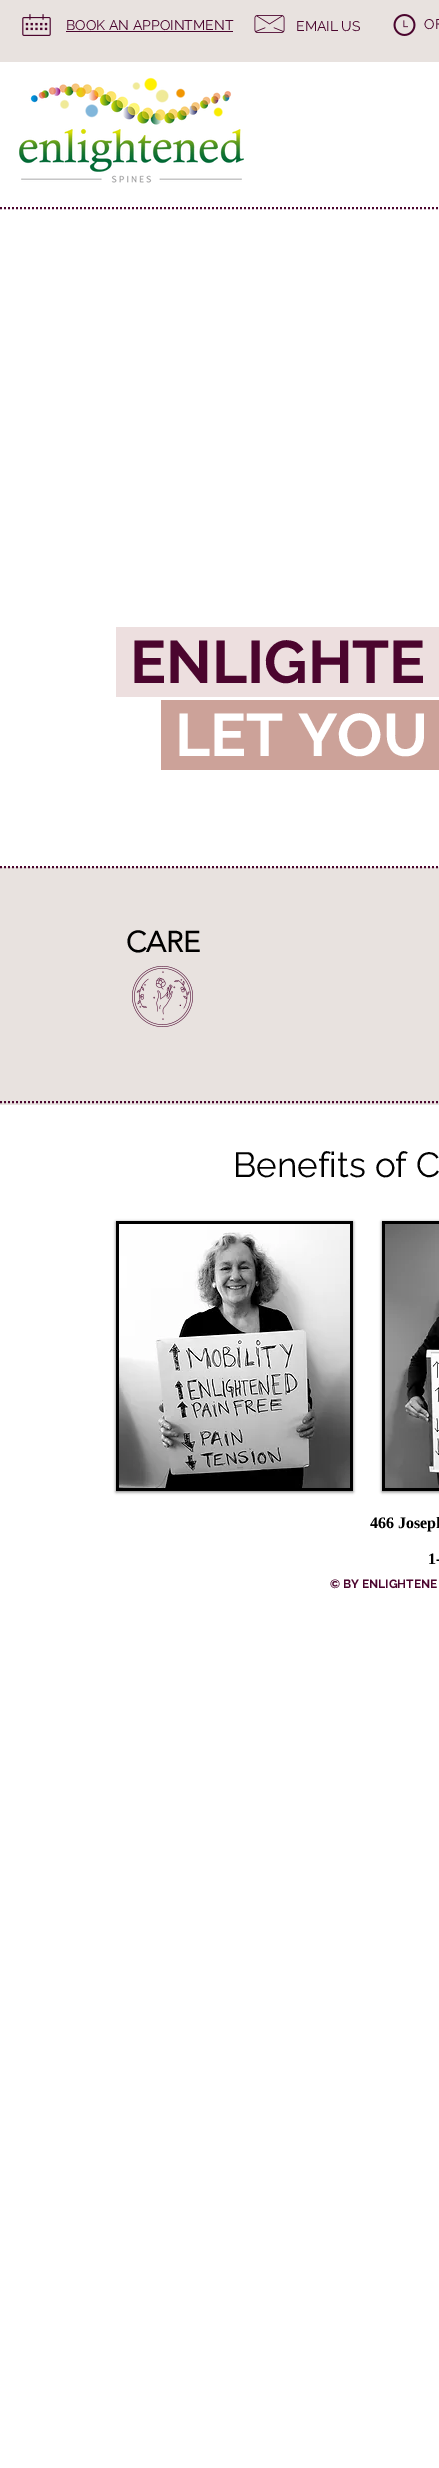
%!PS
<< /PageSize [439 2468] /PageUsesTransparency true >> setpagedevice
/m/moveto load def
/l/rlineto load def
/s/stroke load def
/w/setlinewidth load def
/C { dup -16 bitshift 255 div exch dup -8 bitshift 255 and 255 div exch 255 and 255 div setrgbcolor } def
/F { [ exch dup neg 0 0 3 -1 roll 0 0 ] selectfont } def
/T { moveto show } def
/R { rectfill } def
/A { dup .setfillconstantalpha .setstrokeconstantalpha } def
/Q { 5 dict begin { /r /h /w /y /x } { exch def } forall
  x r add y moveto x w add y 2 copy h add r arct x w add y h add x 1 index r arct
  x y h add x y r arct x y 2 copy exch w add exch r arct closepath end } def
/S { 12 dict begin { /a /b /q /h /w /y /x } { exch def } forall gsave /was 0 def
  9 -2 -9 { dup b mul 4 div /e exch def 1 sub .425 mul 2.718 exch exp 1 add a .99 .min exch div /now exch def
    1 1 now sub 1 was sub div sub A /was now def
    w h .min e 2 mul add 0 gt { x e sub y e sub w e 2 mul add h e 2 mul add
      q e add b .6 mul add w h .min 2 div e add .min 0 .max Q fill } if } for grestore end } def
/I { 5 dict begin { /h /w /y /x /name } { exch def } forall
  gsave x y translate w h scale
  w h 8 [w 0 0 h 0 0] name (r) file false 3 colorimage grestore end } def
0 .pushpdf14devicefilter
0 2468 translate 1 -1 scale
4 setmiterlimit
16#FFFFFF C
0 0 439 2468 R
16#E8E2DF C
0 0 439 62 R
(1.rgb) 22 14 29 22 I
/Raleway-Regular 14 F
16#4B052E C
(BOOK AN APPOINTMENT) 66 30 T
66 31 167 1 R
(2.rgb) 254 15 31 18 I
(EMAIL US) 296 31 T
(3.rgb) 393 14 23 22 I
(OF) 424 29 T
(4.rgb) 19 77 225 106 I
2 w
[2 2] 0 setdash
0 208 m 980 0 l s
16#EDDFDF C
116 627 323 70 R
/Raleway-Bold 60 F
16#4B052E C
(ENLIGHTE) 130 683 T
16#CCA299 C
161 700 278 70 R
16#FFFFFF C
(LET YOU) 175 756 T
16#E8E2DF C
0 867 439 238 R
16#4B052E C
0 867 m 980 0 l s
/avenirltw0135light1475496-Bold 29 F
16#000000 C
(CARE) 126 952 T
(5.rgb) 132 966 61 61 I
16#4B052E C
0 1102 m 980 0 l s
/Raleway-Regular 35 F
16#000000 C
(Benefits of C) 233 1177 T
116 1222 237 270 0 1.5 .5 S
116 1221 237 270 R
(6.rgb) 119 1224 231 264 I
382 1222 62 270 0 1.5 .5 S
382 1221 57 270 R
(7.rgb) 385 1224 54 264 I
/LiberationSerif-Bold 16 F
(466 Joseph) 370 1528 T
(1-) 428 1564 T
/Raleway-Bold 12 F
16#4B052E C
(© BY ENLIGHTENE) 330 1588 T
.poppdf14devicefilter showpage
